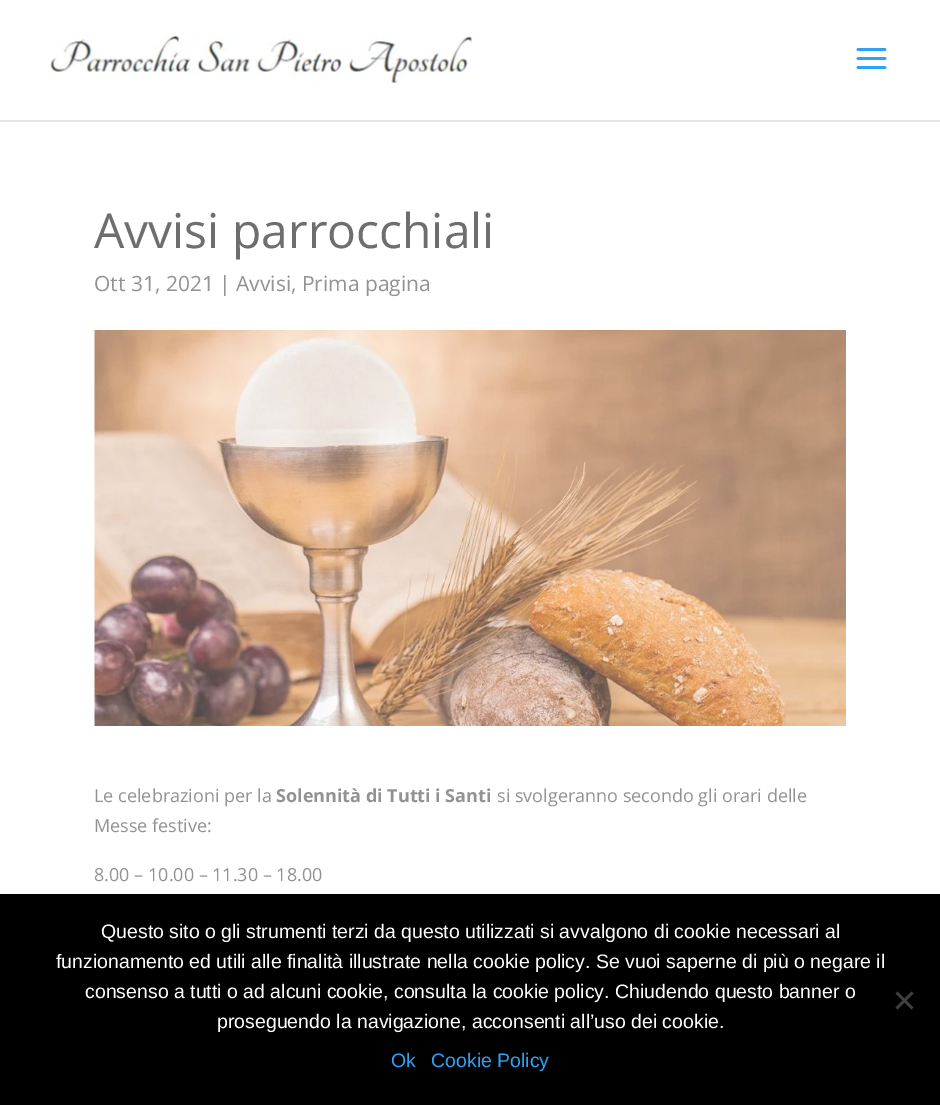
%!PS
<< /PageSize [940 1105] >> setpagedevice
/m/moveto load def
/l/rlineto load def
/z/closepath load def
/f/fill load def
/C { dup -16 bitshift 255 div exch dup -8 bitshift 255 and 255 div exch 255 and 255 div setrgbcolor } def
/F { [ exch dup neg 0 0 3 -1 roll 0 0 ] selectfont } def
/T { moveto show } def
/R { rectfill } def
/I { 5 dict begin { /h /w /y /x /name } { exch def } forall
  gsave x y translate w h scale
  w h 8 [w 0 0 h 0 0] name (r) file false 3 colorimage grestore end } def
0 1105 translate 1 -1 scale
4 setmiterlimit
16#FFFFFF C
0 0 940 1105 R
16#E5E5E5 C
0 120 m 0 2 l 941 0 l 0 -120 l -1 0 l 0 118 l z f
(1.rgb) 49 34 424 50 I
(2.rgb) 856 48 31 21 I
/OpenSans-Regular 48 F
16#6E6E6E C
(Avvisi parrocchiali) 94 248 T
/OpenSans-Regular 21 F
16#929292 C
(Ott 31, 2021 | Avvisi, Prima pagina) 94 291 T
(3.rgb) 94 330 752 396 I
/OpenSans-Regular 18 F
(Le celebrazioni per la) 94 802 T
/OpenSans-Bold 18 F
(Solennità di Tutti i Santi) 276 802 T
/OpenSans-Regular 18 F
(si svolgeranno secondo gli orari delle) 497 802 T
(Messe festive:) 94 832 T
(8.00 – 10.00 – 11.30 – 18.00) 94 881 T
16#000000 C
0 894 940 211 R
/LiberationSans-Regular 19.5 F
16#FFFFFF C
(Questo sito o gli strumenti terzi da questo utilizzati si avvalgono di cookie necessari al) 101 938 T
(funzionamento ed utili alle finalità illustrate nella cookie policy. Se vuoi saperne di più o negare il) 56 968 T
(consenso a tutti o ad alcuni cookie, consulta la cookie policy. Chiudendo questo banner o) 85 998 T
(proseguendo la navigazione, acconsenti all’uso dei cookie.) 217 1028 T
16#404040 C
911.5 991.5 m 2 2 l -16 16 l -2 -2 l z f
895.5 993.5 m 2 -2 l 16 16 l -2 2 l z f
16#2EA3F2 C
(Ok) 391 1067 T
(Cookie Policy) 431 1067 T
showpage
